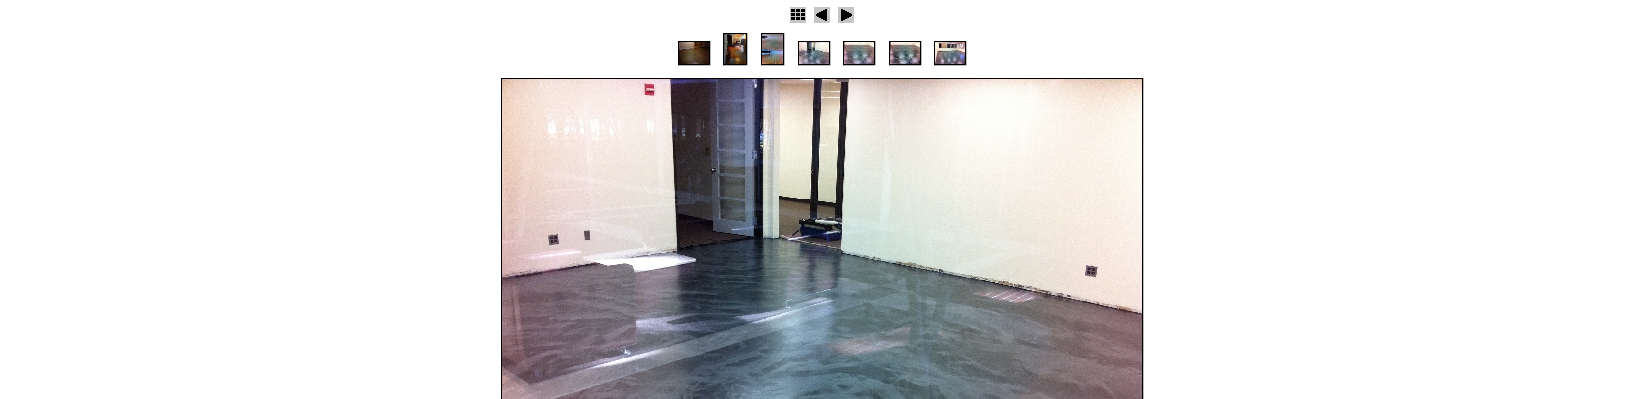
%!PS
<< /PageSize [1644 399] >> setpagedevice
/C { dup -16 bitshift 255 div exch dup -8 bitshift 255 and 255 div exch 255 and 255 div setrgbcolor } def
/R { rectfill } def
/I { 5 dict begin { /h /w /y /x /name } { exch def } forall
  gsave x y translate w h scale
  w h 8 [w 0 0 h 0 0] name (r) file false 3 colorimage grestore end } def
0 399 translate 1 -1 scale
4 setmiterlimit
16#FFFFFF C
0 0 1644 399 R
(1.rgb) 790 7 16 16 I
(2.rgb) 814 7 16 16 I
(3.rgb) 838 7 16 16 I
16#000000 C
723.5 33.5 23 31 rectstroke
761.5 33.5 22 31 rectstroke
678.5 41.5 31 23 rectstroke
(4.rgb) 724 34 22 30 I
(5.rgb) 762 34 21 30 I
798.5 41.5 31 23 rectstroke
843.5 41.5 31 23 rectstroke
889.5 41.5 31 23 rectstroke
934.5 41.5 31 23 rectstroke
(6.rgb) 679 42 30 22 I
(7.rgb) 799 42 30 22 I
(8.rgb) 844 42 30 22 I
(9.rgb) 890 42 30 22 I
(10.rgb) 935 42 30 22 I
501.5 78.5 641 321 rectstroke
(11.rgb) 502 79 640 320 I
showpage
